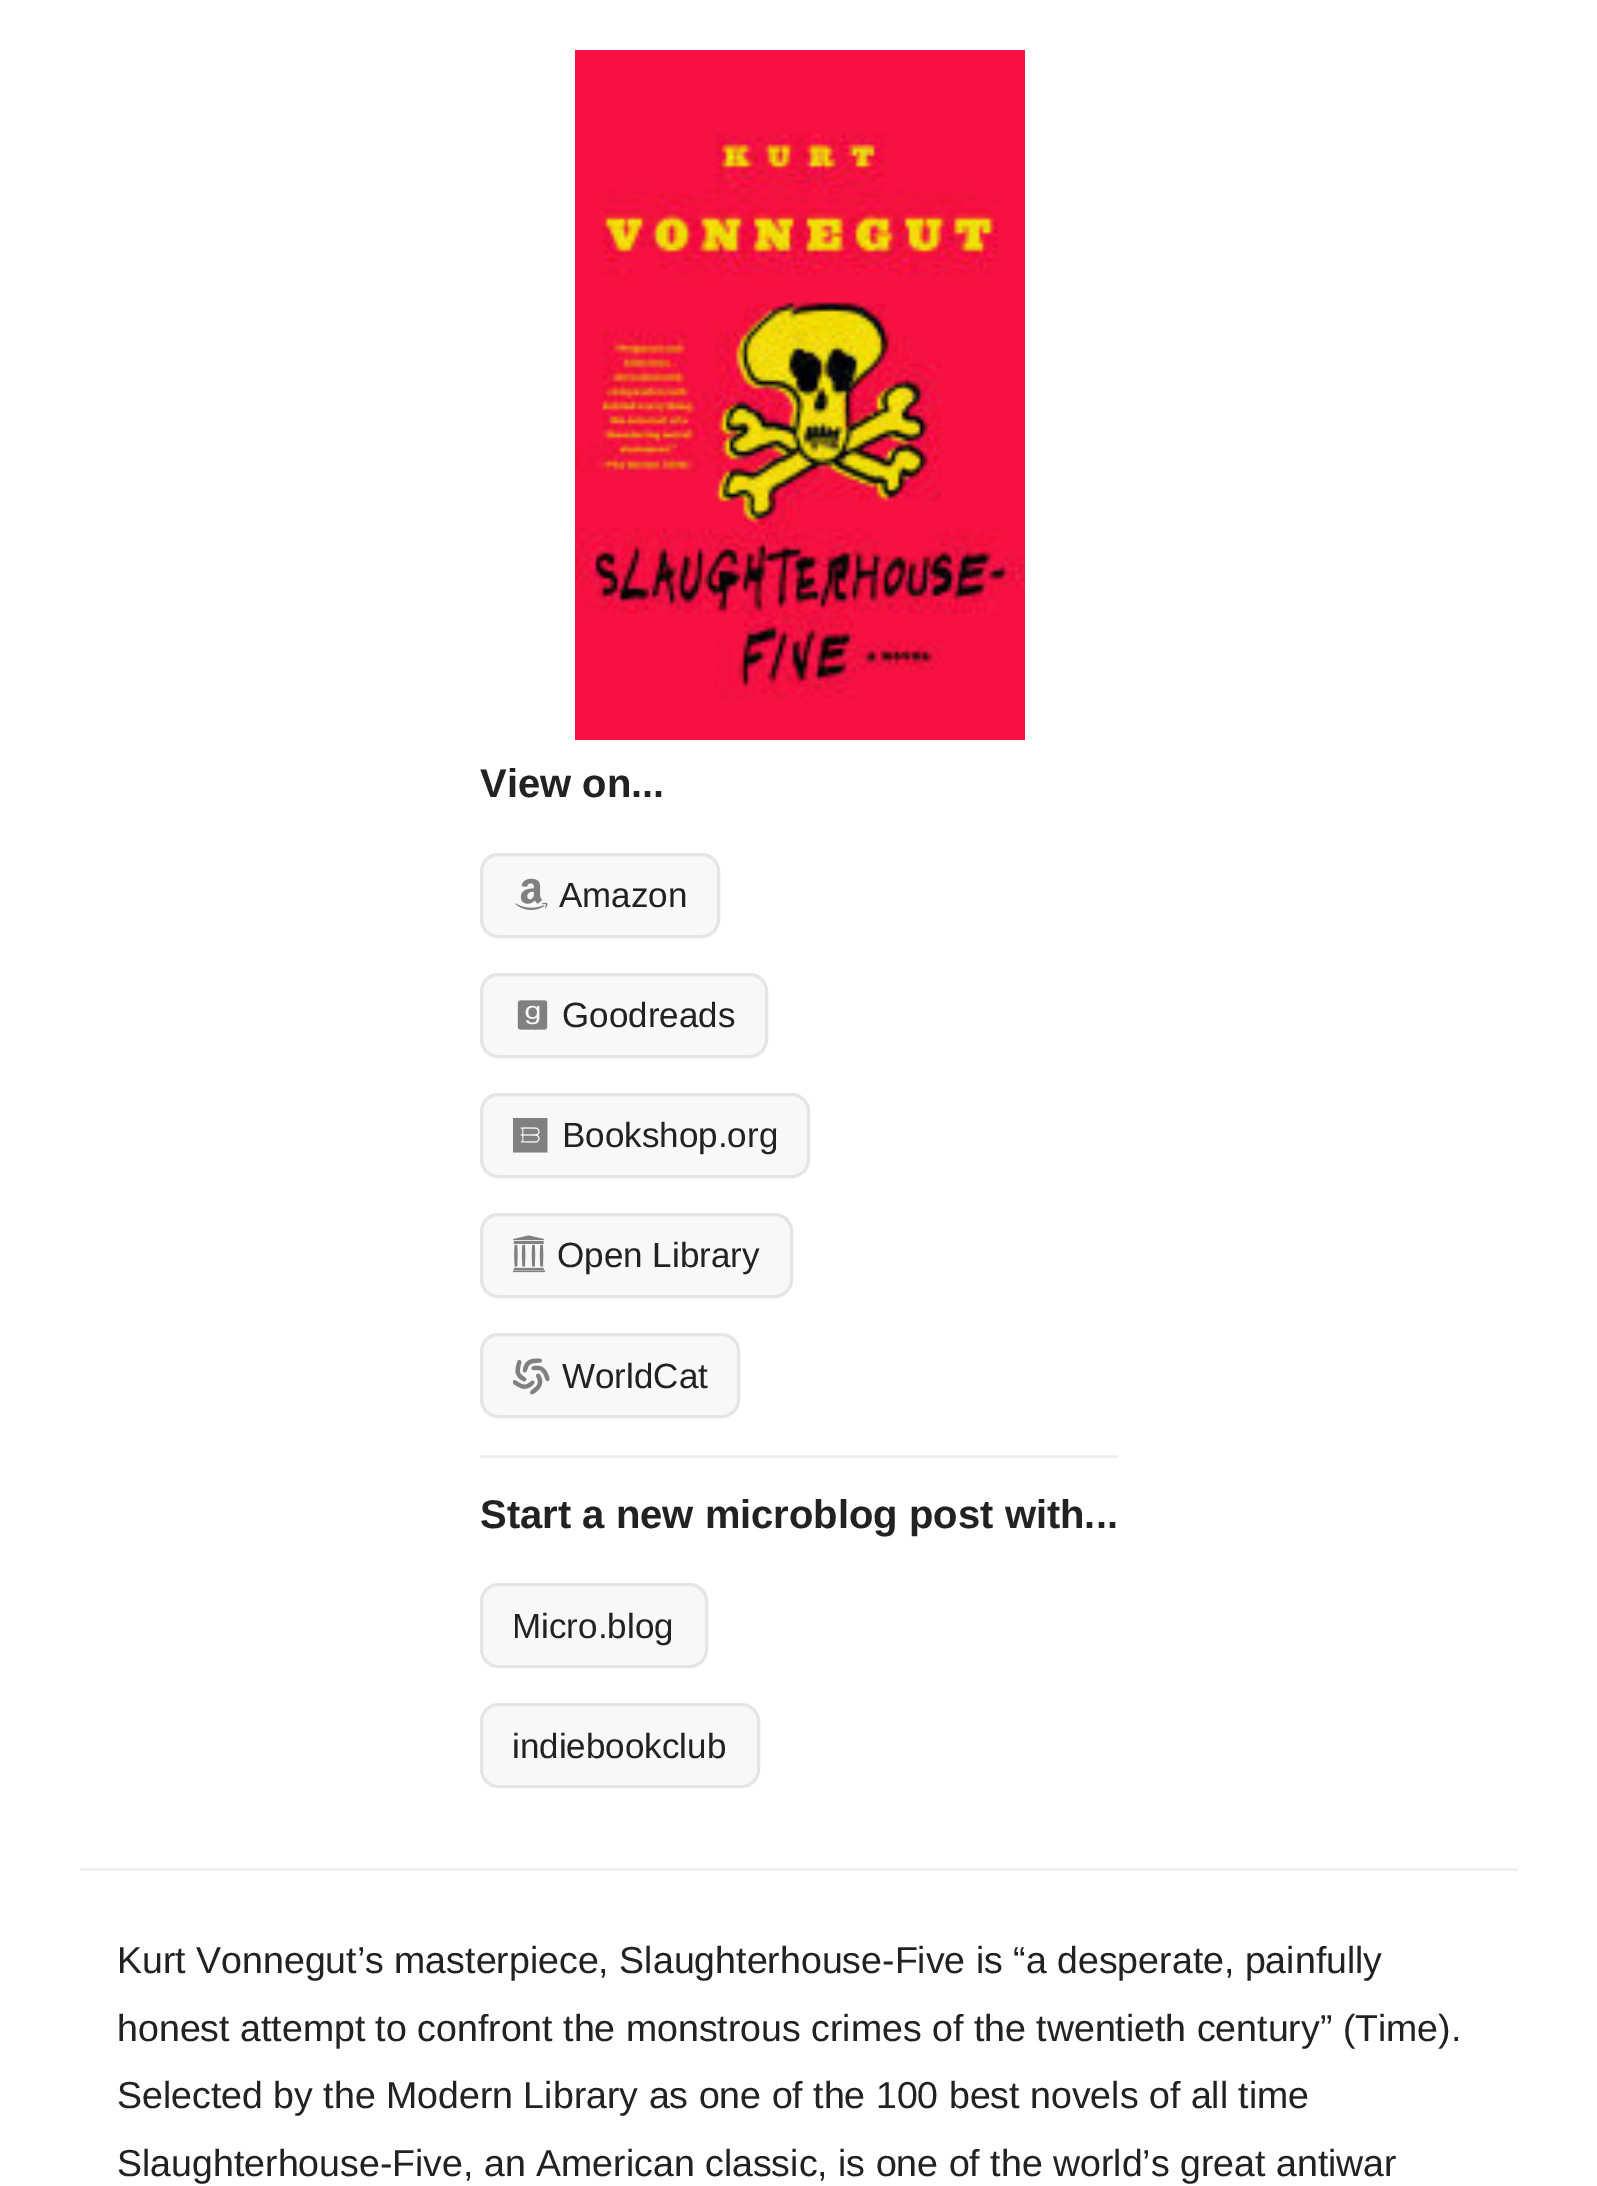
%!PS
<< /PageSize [1597 2186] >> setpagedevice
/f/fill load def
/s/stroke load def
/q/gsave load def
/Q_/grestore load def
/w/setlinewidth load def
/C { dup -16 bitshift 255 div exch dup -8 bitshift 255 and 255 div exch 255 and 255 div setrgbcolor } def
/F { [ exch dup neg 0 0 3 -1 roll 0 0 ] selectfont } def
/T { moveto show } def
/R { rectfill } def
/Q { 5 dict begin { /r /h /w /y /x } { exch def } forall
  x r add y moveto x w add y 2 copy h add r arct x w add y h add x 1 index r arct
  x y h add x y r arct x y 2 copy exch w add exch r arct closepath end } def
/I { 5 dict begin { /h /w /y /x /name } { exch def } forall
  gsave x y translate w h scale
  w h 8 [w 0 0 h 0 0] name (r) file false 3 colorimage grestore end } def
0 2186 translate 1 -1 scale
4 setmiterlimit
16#FFFFFF C
0 0 1597 2186 R
(1.rgb) 575 50 450 690 I
/LiberationSans-Bold 40 F
16#222222 C
(View on...) 480 797 T
16#F8F8F8 C
481.5 854.5 237 82 16.5 Q q f Q_
16#E5E5E5 C
3 w
s
(2.rgb) 515 878 33 32 I
/LiberationSans-Regular 35 F
16#222222 C
(Amazon) 559 907 T
16#F8F8F8 C
481.5 974.5 285 82 16.5 Q q f Q_
16#E5E5E5 C
s
(3.rgb) 517 1000 31 30 I
16#222222 C
(Goodreads) 562 1027 T
16#F8F8F8 C
481.5 1094.5 327 82 16.5 Q q f Q_
16#E5E5E5 C
s
(4.rgb) 513 1118 35 35 I
16#222222 C
(Bookshop.org) 562 1147 T
16#F8F8F8 C
481.5 1214.5 310 82 16.5 Q q f Q_
16#E5E5E5 C
s
(5.rgb) 513 1235 32 38 I
16#222222 C
(Open Library) 557 1267 T
16#F8F8F8 C
481.5 1334.5 257 82 16.5 Q q f Q_
16#E5E5E5 C
s
(6.rgb) 513 1358 37 37 I
16#222222 C
(WorldCat) 562 1388 T
16#EFEFEF C
480 1455 638 3 R
/LiberationSans-Bold 40 F
16#222222 C
(Start a new microblog post with...) 480 1528 T
16#F8F8F8 C
481.5 1584.5 225 82 16.5 Q q f Q_
16#E5E5E5 C
s
/LiberationSans-Regular 35 F
16#222222 C
(Micro.blog) 512 1638 T
16#F8F8F8 C
481.5 1704.5 277 82 16.5 Q q f Q_
16#E5E5E5 C
s
16#222222 C
(indiebookclub) 512 1758 T
16#EFEFEF C
80 1868 1438 3 R
/LiberationSans-Regular 37.5 F
16#222222 C
(Kurt Vonnegut’s masterpiece, Slaughterhouse-Five is “a desperate, painfully) 117 1973 T
(honest attempt to confront the monstrous crimes of the twentieth century” \(Time\).) 117 2041 T
(Selected by the Modern Library as one of the 100 best novels of all time) 117 2108 T
(Slaughterhouse-Five, an American classic, is one of the world’s great antiwar) 117 2176 T
showpage
